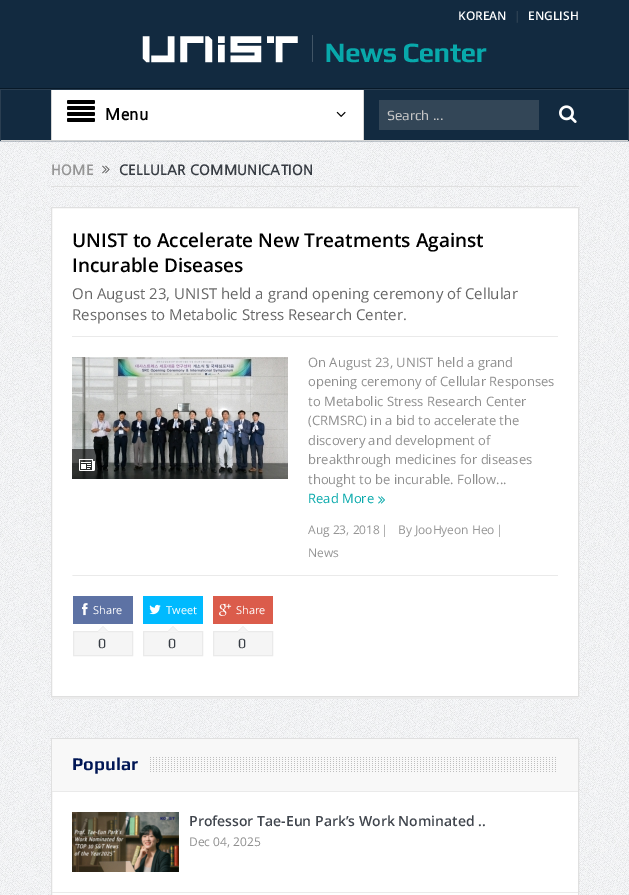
%!PS
<< /PageSize [629 895] /PageUsesTransparency true >> setpagedevice
/m/moveto load def
/l/rlineto load def
/z/closepath load def
/f/fill load def
/s/stroke load def
/q/gsave load def
/Q_/grestore load def
/C { dup -16 bitshift 255 div exch dup -8 bitshift 255 and 255 div exch 255 and 255 div setrgbcolor } def
/F { [ exch dup neg 0 0 3 -1 roll 0 0 ] selectfont } def
/T { moveto show } def
/R { rectfill } def
/A { dup .setfillconstantalpha .setstrokeconstantalpha } def
/I { 5 dict begin { /h /w /y /x /name } { exch def } forall
  gsave x y translate w h scale
  w h 8 [w 0 0 h 0 0] name (r) file false 3 colorimage grestore end } def
0 .pushpdf14devicefilter
0 895 translate 1 -1 scale
4 setmiterlimit
16#FFFFFF C
0 0 629 895 R
(1.rgb) 0 141 629 754 I
16#122A40 C
0 0 629 88 R
16#081928 C
0 88 629 1 R
/OpenSans-SemiBold 12 F
16#FFFFFF C
(KOREAN) 458 20 T
16#334657 C
(|) 514 20 T
16#FFFFFF C
(ENGLISH) 528 20 T
(2.rgb) 142 36 156 27 I
(3.rgb) 312 35 175 28 I
16#2A3E51 C
.5 89.5 628 51 rectstroke
16#122A40 C
1 90 627 50 R
16#D4D5D5 C
1 140 627 1 R
16#FFFFFF C
52 90 311 50 R
16#D4D5D5 C
363 90 1 50 R
51 90 1 50 R
(4.rgb) 67 100 28 22 I
/NanumGothic-Bold 16 F
16#000000 C
(Menu) 105 120 T
(5.rgb) 336 111 10 6 I
16#334657 C
379 100 160 30 R
/Play-Regular 14 F
16#C6C6C6 C
(Search ...) 387 120 T
(6.rgb) 559 105 18 18 I
16#E0E0E0 C
51 186 528 1 R
/NanumGothic-Bold 14 F
16#959595 C
(HOME) 51 175 T
(7.rgb) 102 165 8 9 I
16#373C43 C
(CELLULAR COMMUNICATION) 119 175 T
16#FFFFFF C
51.5 207.5 m 527 0 l 0 489 l -527 0 l z q f Q_
16#E0E0E0 C
s
16#EAEAEA C
72 336 486 1 R
/OpenSans-SemiBold 19 F
16#000000 C
(UNIST to Accelerate New Treatments Against) 72 247 T
(Incurable Diseases) 72 272 T
/OpenSans-Regular 15 F
16#666666 C
(On August 23, UNIST held a grand opening ceremony of Cellular) 72 299 T
(Responses to Metabolic Stress Research Center.) 72 320 T
(8.rgb) 72 357 216 122 I
0.6 A
16#000000 C
72 449 31 30 R
1 A
(9.rgb) 79 459 16 12 I
/OpenSans-Regular 13 F
16#8E8E8E C
(On August 23, UNIST held a grand) 308 367 T
(opening ceremony of Cellular Responses) 308 386 T
(to Metabolic Stress Research Center) 308 406 T
(\(CRMSRC\) in a bid to accelerate the) 308 425 T
(discovery and development of) 308 445 T
(breakthrough medicines for diseases) 308 464 T
(thought to be incurable. Follow...) 308 484 T
16#08A9AB C
(Read More) 308 503 T
(10.rgb) 378 496 7 8 I
/OpenSans-Regular 12 F
16#959595 C
(Aug 23, 2018) 308 534 T
(|) 381 534 T
(By JooHyeon Heo) 398 534 T
(|) 496 534 T
(News) 308 557 T
16#EAEAEA C
72 575 m 486 0 l 0 1 l -485 0 l z f
16#5D72A4 C
73 596 60 28 R
(11.rgb) 82 603 6 13 I
/OpenSans-Regular 11 F
16#FFFFFF C
(Share) 93 614 T
16#F5F5F5 C
73.5 631.5 m 59 0 l 0 24 l -59 0 l z q f Q_
16#EAEAEA C
s
109 632 m -12 0 l 6 -6 l z f
16#F5F5F5 C
108 632 m -10 0 l 5 -5 l z f
/Play-Regular 14 F
16#373C43 C
(0) 98 648 T
16#00BAFF C
143 596 60 28 R
(12.rgb) 149 604 12 11 I
/OpenSans-Regular 11 F
16#FFFFFF C
(Tweet) 166 614 T
16#F5F5F5 C
143.5 631.5 m 59 0 l 0 24 l -59 0 l z q f Q_
16#EAEAEA C
s
179 632 m -12 0 l 6 -6 l z f
16#F5F5F5 C
178 632 m -10 0 l 5 -5 l z f
/Play-Regular 14 F
16#373C43 C
(0) 168 648 T
16#DB5C4B C
213 596 60 28 R
(13.rgb) 219 603 13 13 I
/OpenSans-Regular 11 F
16#FFFFFF C
(Share) 236 614 T
16#F5F5F5 C
213.5 631.5 m 59 0 l 0 24 l -59 0 l z q f Q_
16#EAEAEA C
s
249 632 m -12 0 l 6 -6 l z f
16#F5F5F5 C
248 632 m -10 0 l 5 -5 l z f
/Play-Regular 14 F
16#373C43 C
(0) 238 648 T
16#EBEBEB C
52 697 526 2 R
16#FFFFFF C
52 792 526 103 R
16#E0E0E0 C
51.5 738.5 527 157 rectstroke
16#F8F8F8 C
52 739 526 52 R
16#EAEAEA C
52 791 526 1 R
(14.rgb) 150 757 406 15 I
/Play-Bold 18 F
16#001655 C
(Popular) 72 770 T
(15.rgb) 72 812 107 60 I
/OpenSans-SemiBold 14 F
16#40454D C
(Professor Tae-Eun Park’s Work Nominated ..) 189 826 T
/OpenSans-Regular 12 F
16#8E8E8E C
(Dec 04, 2025) 189 846 T
16#EAEAEA C
52 892 526 1 R
.poppdf14devicefilter showpage
